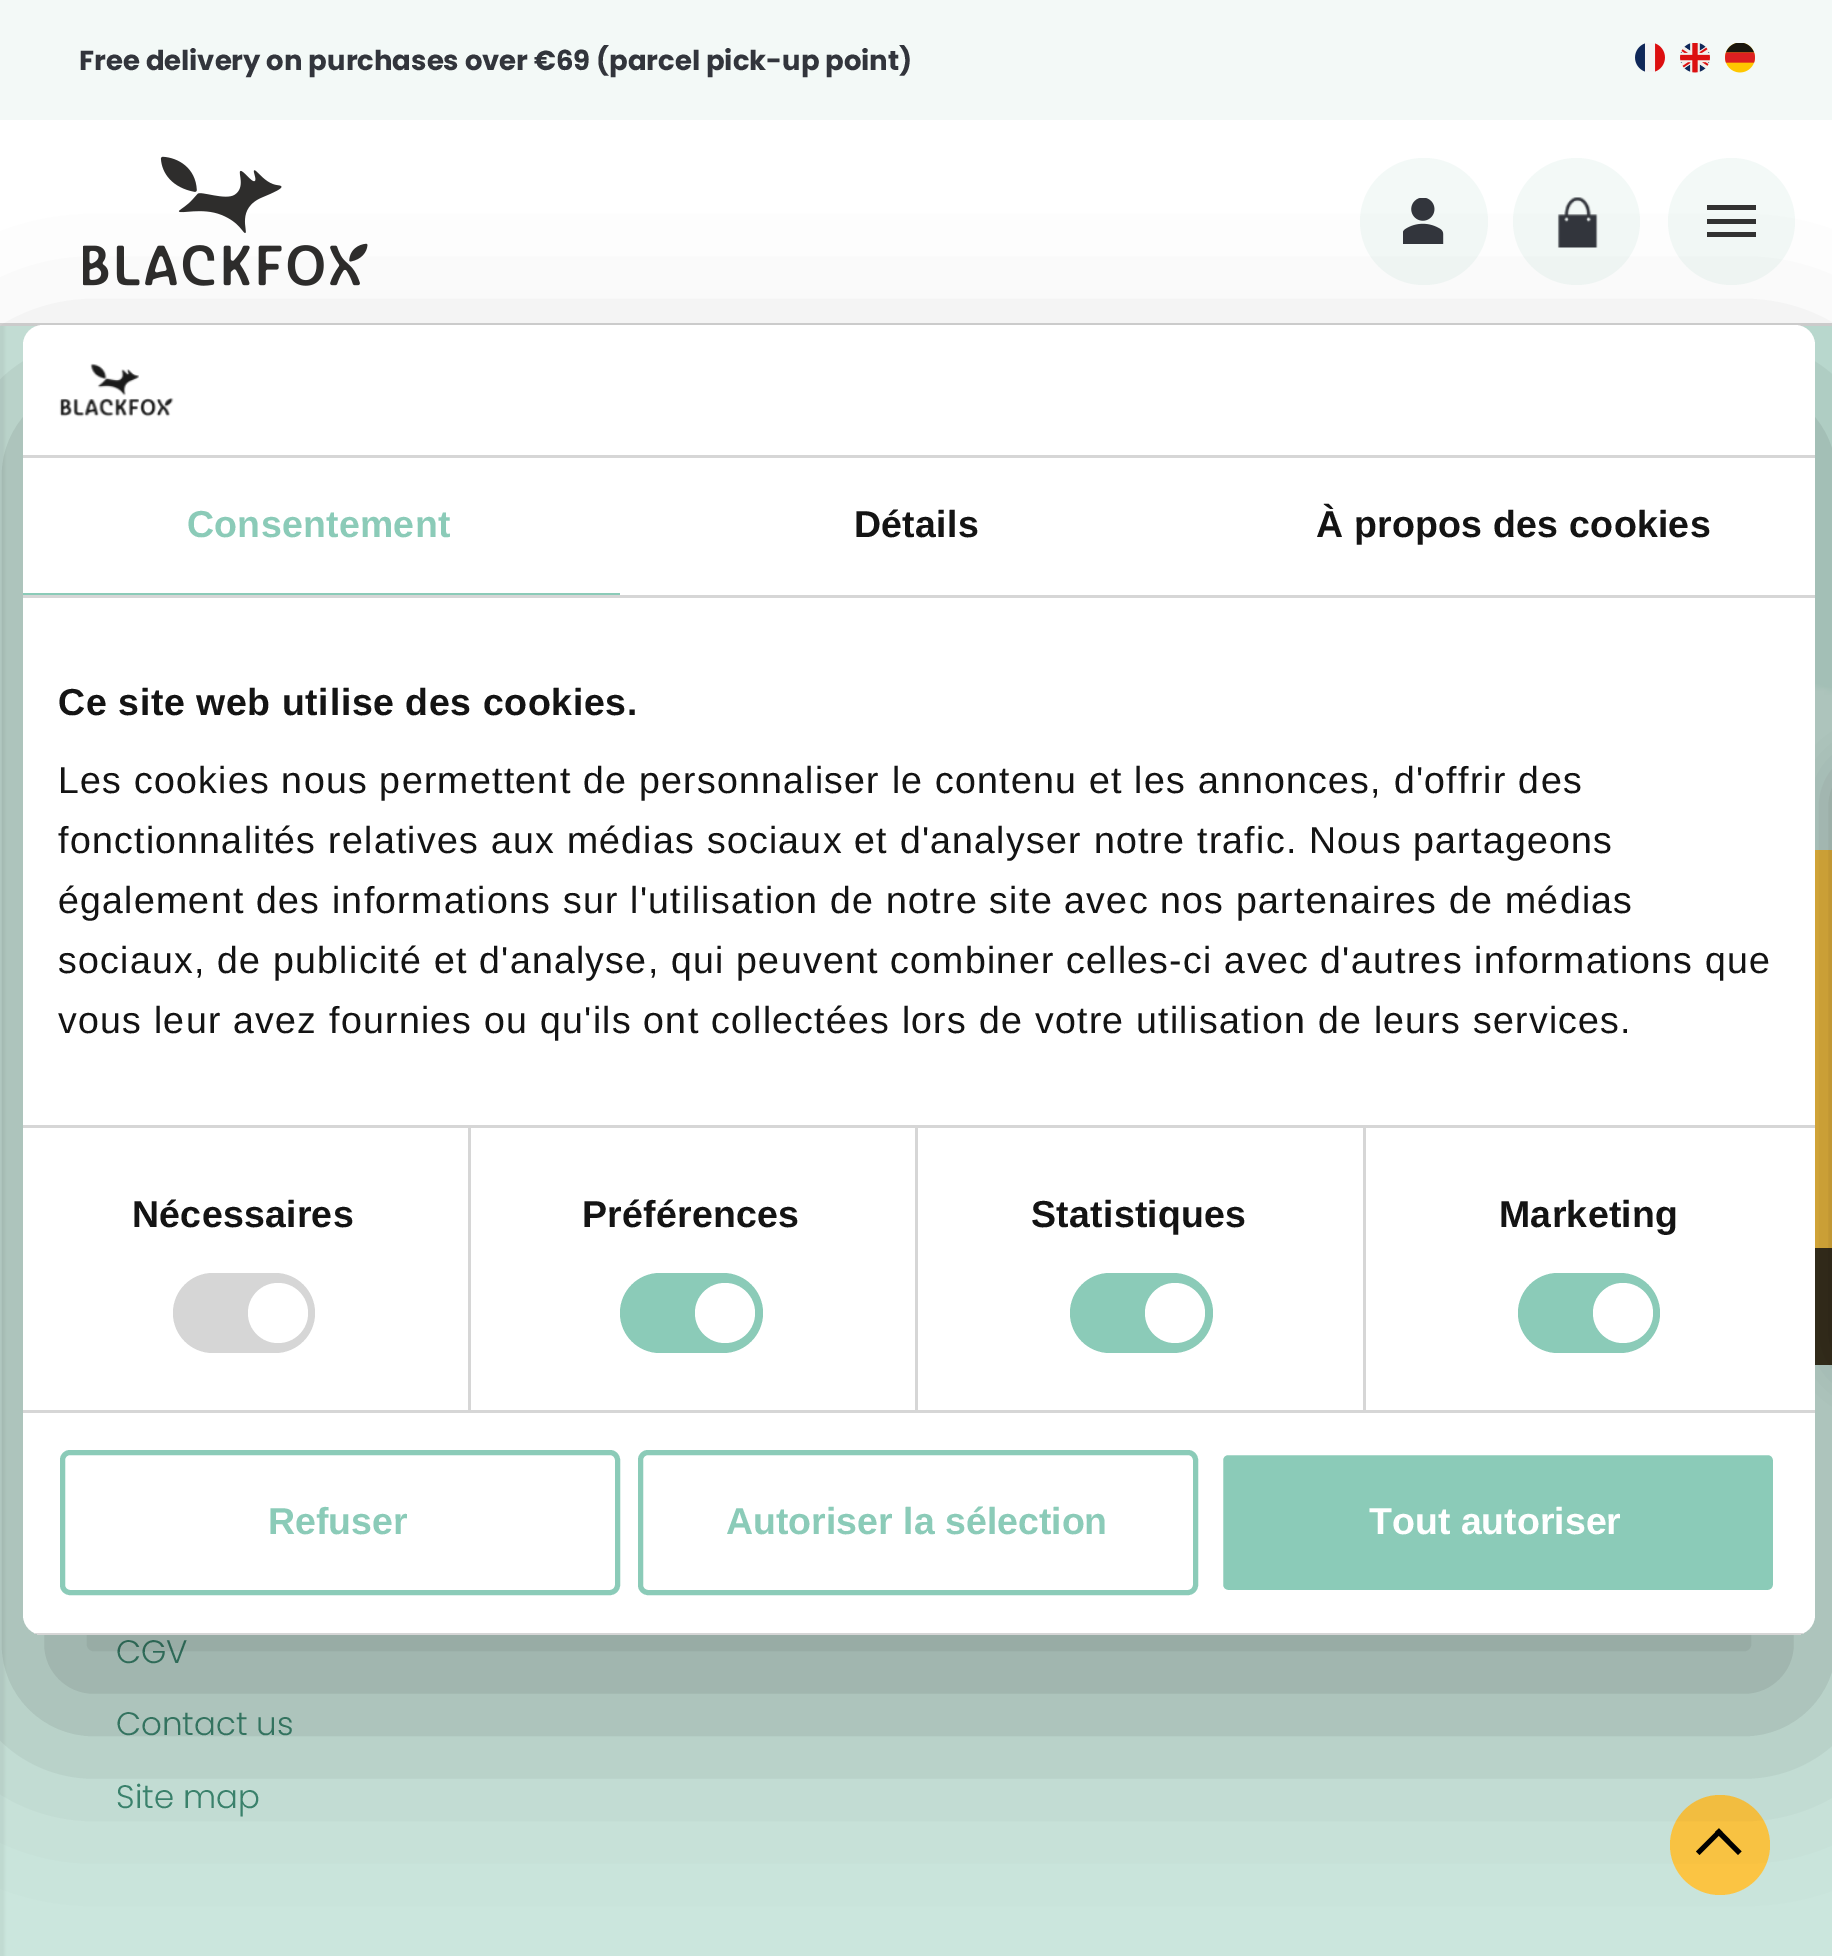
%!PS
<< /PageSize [1832 1956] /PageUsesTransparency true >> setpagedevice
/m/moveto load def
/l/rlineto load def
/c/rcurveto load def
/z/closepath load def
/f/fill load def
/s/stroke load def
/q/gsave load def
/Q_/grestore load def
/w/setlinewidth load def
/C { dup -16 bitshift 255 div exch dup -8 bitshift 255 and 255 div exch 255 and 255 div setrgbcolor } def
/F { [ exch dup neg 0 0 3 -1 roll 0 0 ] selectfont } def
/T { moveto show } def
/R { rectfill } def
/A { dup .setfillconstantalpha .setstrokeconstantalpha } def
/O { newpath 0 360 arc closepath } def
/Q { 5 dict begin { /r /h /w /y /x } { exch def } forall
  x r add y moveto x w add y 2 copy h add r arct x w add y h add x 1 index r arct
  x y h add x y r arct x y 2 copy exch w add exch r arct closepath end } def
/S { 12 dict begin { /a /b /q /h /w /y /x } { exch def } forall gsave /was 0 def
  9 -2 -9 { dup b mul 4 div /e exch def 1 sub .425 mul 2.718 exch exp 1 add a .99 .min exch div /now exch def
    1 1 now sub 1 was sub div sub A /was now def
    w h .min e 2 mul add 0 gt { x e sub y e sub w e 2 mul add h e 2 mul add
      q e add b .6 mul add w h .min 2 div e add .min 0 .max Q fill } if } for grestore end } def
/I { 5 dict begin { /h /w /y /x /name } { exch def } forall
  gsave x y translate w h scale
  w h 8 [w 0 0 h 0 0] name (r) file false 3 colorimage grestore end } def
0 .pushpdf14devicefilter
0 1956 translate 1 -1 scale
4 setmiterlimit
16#FFFFFF C
0 0 1832 1956 R
16#D4D4D4 C
0 323 1832 3 R
16#F3F9F7 C
0 0 1832 120 R
/Poppins-Bold 27.5 F
16#32353C C
(Free delivery on purchases over €69 \(parcel pick-up point\)) 79 70 T
(1.rgb) 1635 43 30 29 I
(2.rgb) 1680 43 30 30 I
(3.rgb) 1725 43 30 30 I
(4.rgb) 83 156 285 130 I
16#F3F9F7 C
1360 158 128 127 63.5 Q f
(5.rgb) 1403 198 41 46 I
1576.5 221.5 63.5 O f
(6.rgb) 1557 197 41 51 I
1731.5 221.5 63.5 O f
16#323232 C
1707 237 m 49 0 l 0 -5 l -49 0 l z 1707 224 m 49 0 l 0 -5 l -49 0 l z 1707 205 m 0 5 l 49 0 l 0 -5 l z f
(7.rgb) 0 326 1832 1630 I
/Poppins-Light 32.5 F
16#3C8770 C
(CGV) 116 1663 T
(Contact us) 116 1735 T
(Site map) 116 1808 T
16#3A331E C
1815 1248 17 117 R
16#FDC644 C
1815 850 17 398 R
16#000000 C
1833 760 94 618 38 19 .2 S
16#FDC644 C
1720 1845 50 O f
16#000000 C
1696 1851.5 m 23 -23 l 3.5 3.5 l -23 23 l z f
1715 1832 m 4 -3.5 l 22.5 23 l -3.5 3.5 l z f
q
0 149 m 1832 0 l 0 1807 l -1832 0 l z 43 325 m 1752 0 l 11 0 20 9 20 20 c 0 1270 l 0 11 -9 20 -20 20 c -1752 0 l -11 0 -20 -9 -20 -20 c 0 -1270 l 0 -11 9 -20 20 -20 c z eoclip newpath
23 405 1792 1310 20 85 .3 S
Q_
16#FFFFFF C
23 325 1792 1310 20 Q f
16#D6D6D6 C
23 455 1792 3 R
(8.rgb) 59 363 115 54 I
23 595 1792 3 R
16#8BCBB8 C
23 593 597 2 R
/LiberationSans-Bold 37.5 F
187 537 m .25 0 (Consentement) ashow
16#141414 C
854 537 m .25 0 (Détails) ashow
1316 537 m .25 0 (À propos des cookies) ashow
16#D6D6D6 C
23 1125 1792 3 R
16#141414 C
58 715 m .6 0 (Ce site web utilise des cookies.) ashow
/LiberationSans-Regular 37.5 F
58 793 m 1.25 0 (Les cookies nous permettent de personnaliser le contenu et les annonces, d'offrir des) ashow
58 853 m 1.25 0 (fonctionnalités relatives aux médias sociaux et d'analyser notre trafic. Nous partageons) ashow
58 913 m 1.25 0 (également des informations sur l'utilisation de notre site avec nos partenaires de médias) ashow
58 973 m 1.25 0 (sociaux, de publicité et d'analyse, qui peuvent combiner celles-ci avec d'autres informations que) ashow
58 1033 m 1.25 0 (vous leur avez fournies ou qu'ils ont collectées lors de votre utilisation de leurs services.) ashow
16#D6D6D6 C
23 1410 1792 3 R
468 1128 3 282 R
/LiberationSans-Bold 37.5 F
16#141414 C
132 1227 m .25 0 (Nécessaires) ashow
16#D6D6D6 C
173 1273 142 80 40 Q f
16#FFFFFF C
278 1313 30 O f
16#D6D6D6 C
915 1128 3 282 R
16#141414 C
582 1227 m .25 0 (Préférences) ashow
16#8BCBB8 C
620 1273 143 80 40 Q f
16#FFFFFF C
725 1313 30 O f
16#D6D6D6 C
1363 1128 3 282 R
16#141414 C
1031 1227 m .25 0 (Statistiques) ashow
16#8BCBB8 C
1070 1273 143 80 40 Q f
16#FFFFFF C
1175 1313 30 O f
16#141414 C
1499 1227 m .25 0 (Marketing) ashow
16#8BCBB8 C
1518 1273 142 80 40 Q f
16#FFFFFF C
1623 1313 30 O f
q
23 325 1792 1310 20 Q clip newpath
16#D6D6D6 C
34 1633 1770 2 R
Q_
16#8BCBB8 C
5 w
62.5 1452.5 555 140 7.5 Q s
(Refuser) 268 1534 T
640.5 1452.5 555 140 7.5 Q s
(Autoriser la sélection) 726 1534 T
1220.5 1452.5 555 140 7.5 Q q f Q_
16#FFFFFF C
s
(Tout autoriser) 1369 1534 T
.poppdf14devicefilter showpage
